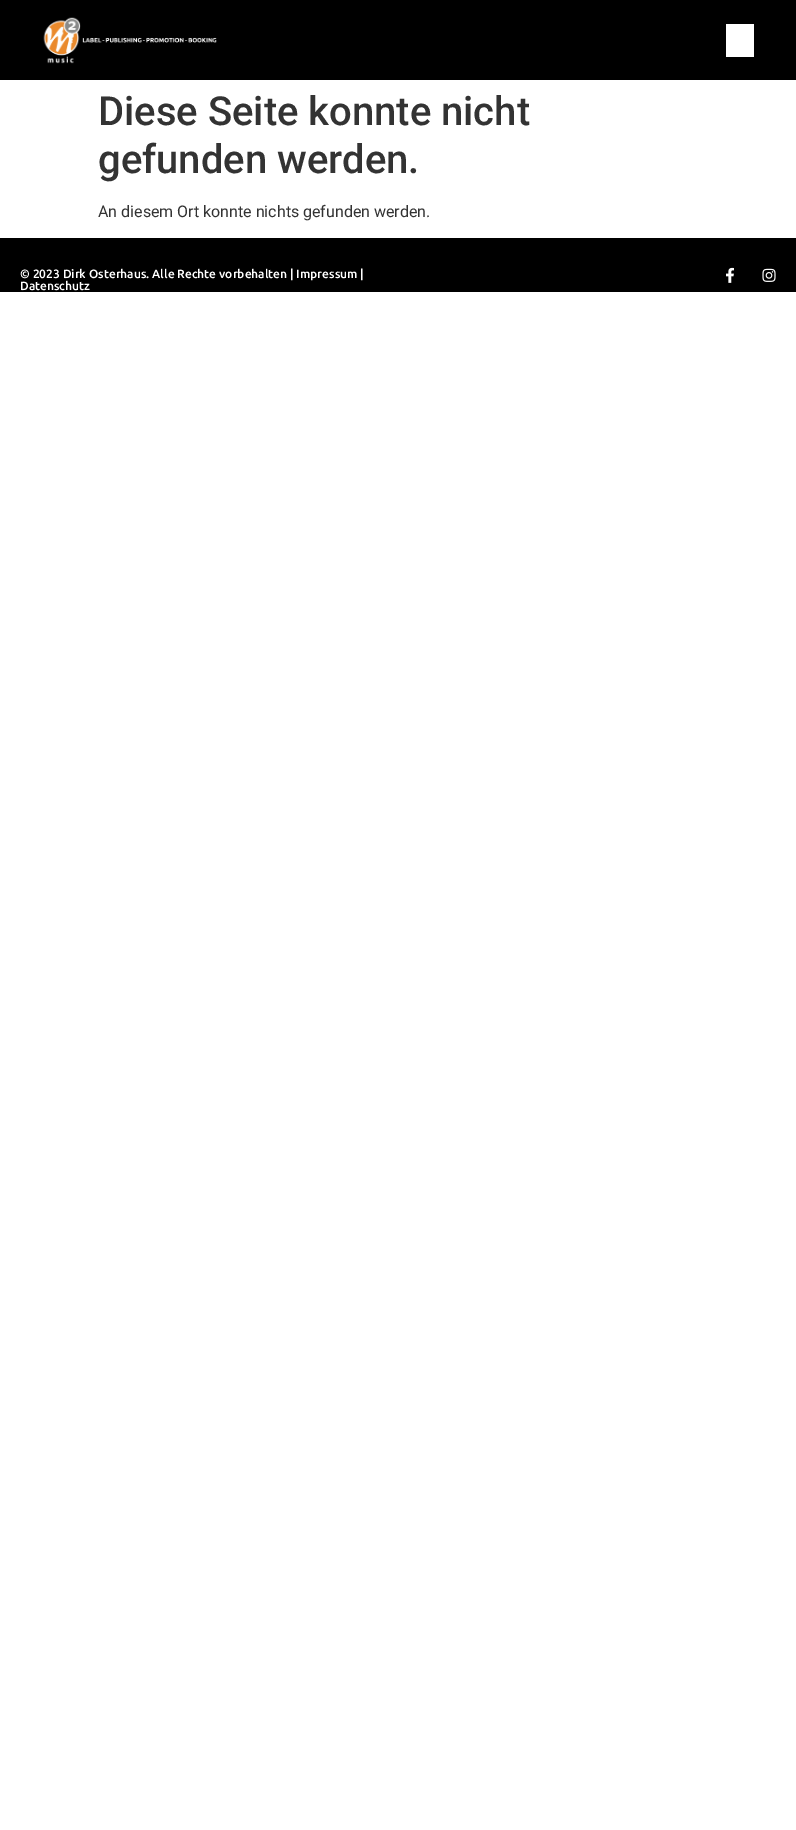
%!PS
<< /PageSize [796 1830] >> setpagedevice
/C { dup -16 bitshift 255 div exch dup -8 bitshift 255 and 255 div exch 255 and 255 div setrgbcolor } def
/F { [ exch dup neg 0 0 3 -1 roll 0 0 ] selectfont } def
/T { moveto show } def
/R { rectfill } def
/I { 5 dict begin { /h /w /y /x /name } { exch def } forall
  gsave x y translate w h scale
  w h 8 [w 0 0 h 0 0] name (r) file false 3 colorimage grestore end } def
0 1830 translate 1 -1 scale
4 setmiterlimit
16#FFFFFF C
0 0 796 1830 R
16#000000 C
0 0 796 80 R
(1.rgb) 43 17 174 47 I
16#FFFFFF C
726 24 28 33 R
/Roboto-Medium 40 F
16#333333 C
(Diese Seite konnte nicht) 98 125 T
(gefunden werden.) 98 173 T
/Roboto-Regular 16 F
(An diesem Ort konnte nichts gefunden werden.) 98 217 T
16#000000 C
0 238 796 54 R
/Ubuntu-Medium 12 F
16#FFFFFF C
(© 2023 Dirk Osterhaus. Alle Rechte vorbehalten | Impressum |) 20 278 T
(Datenschutz) 20 290 T
(2.rgb) 726 267 8 16 I
(3.rgb) 762 268 14 14 I
showpage
